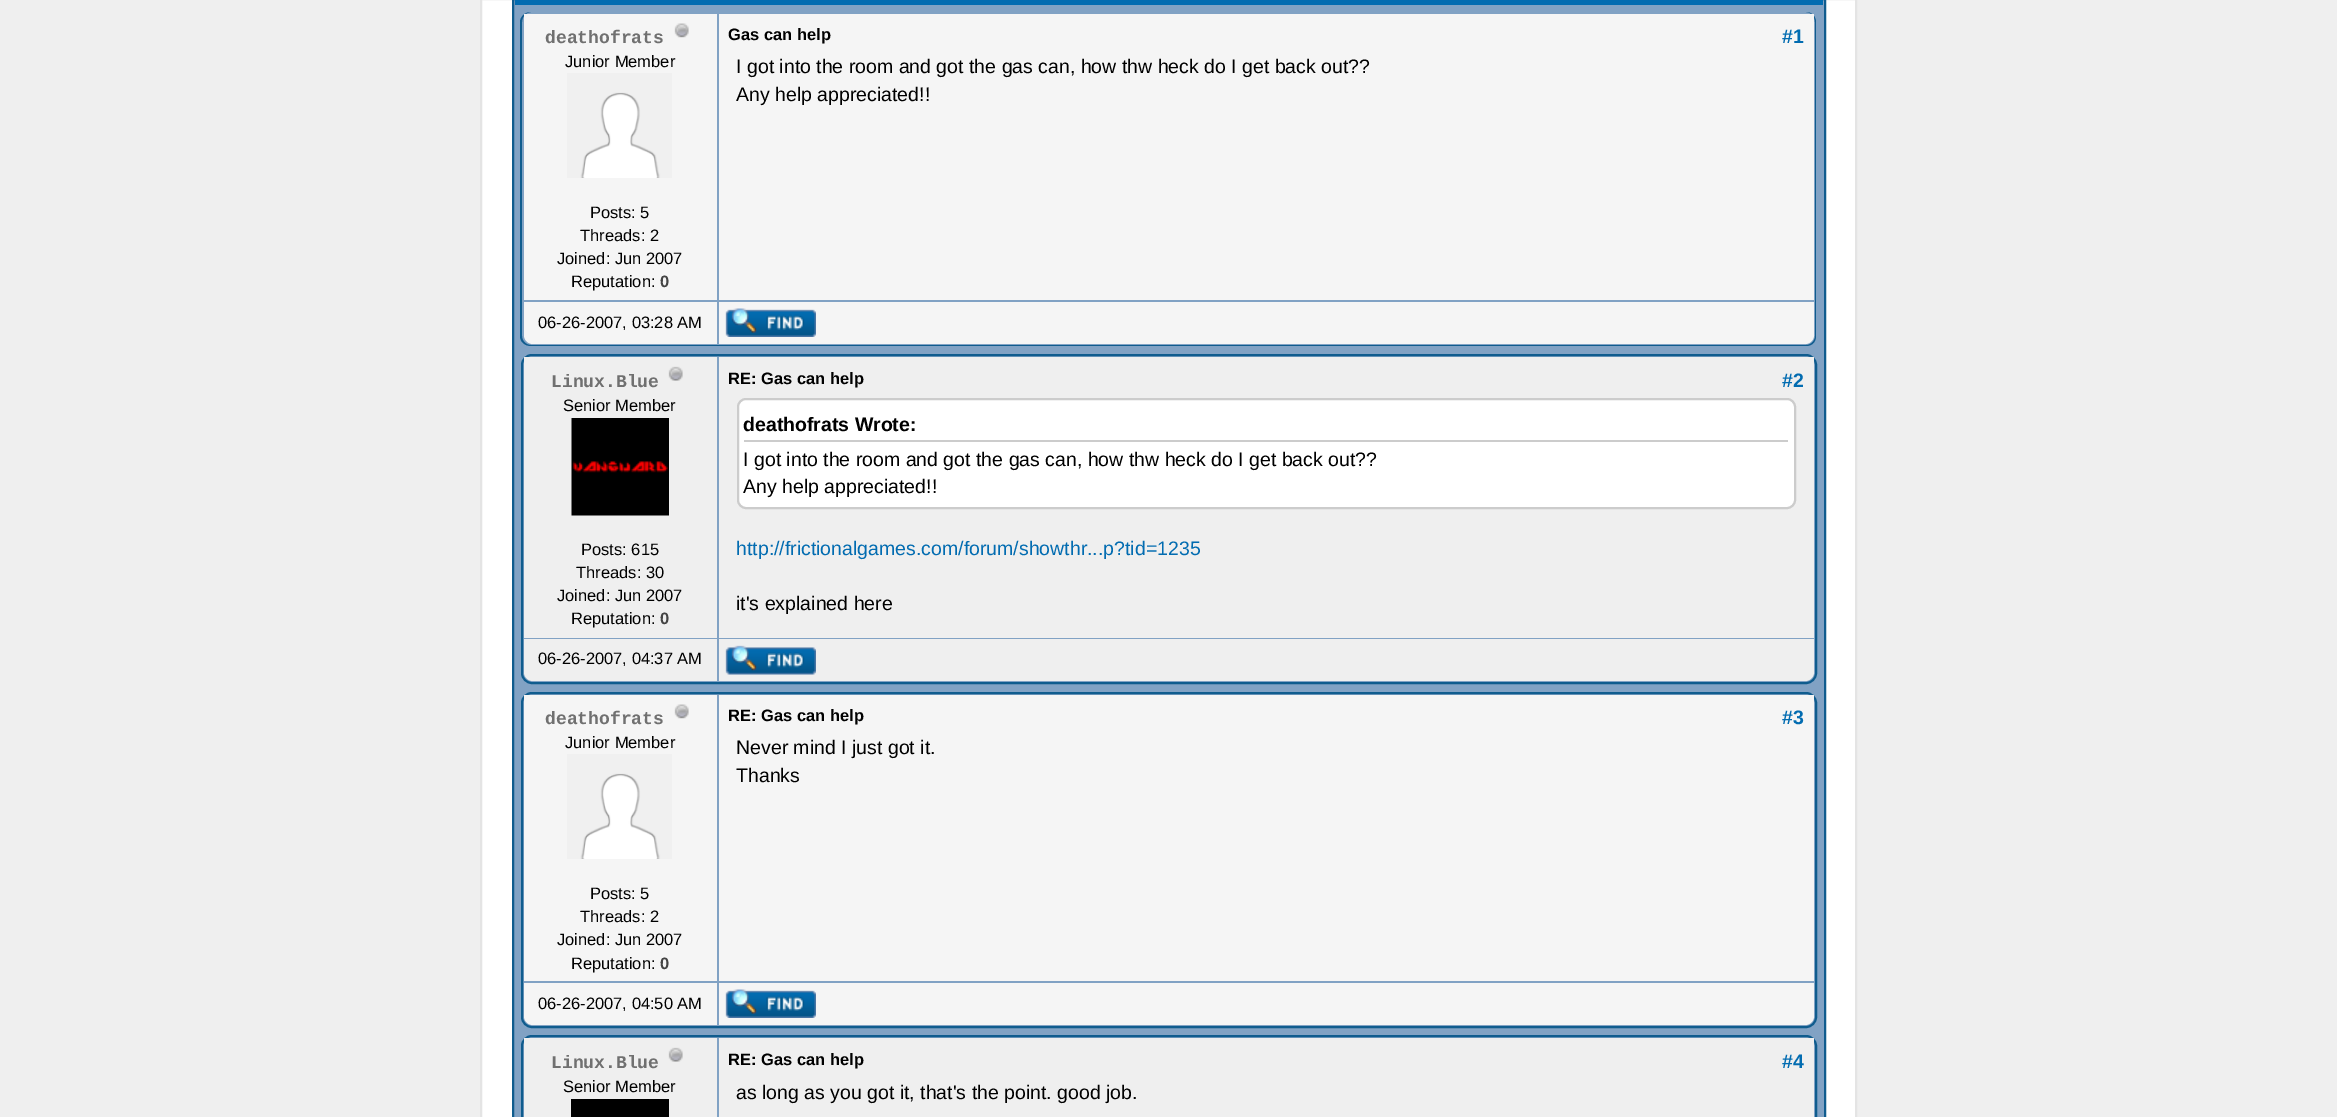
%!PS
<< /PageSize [2337 1117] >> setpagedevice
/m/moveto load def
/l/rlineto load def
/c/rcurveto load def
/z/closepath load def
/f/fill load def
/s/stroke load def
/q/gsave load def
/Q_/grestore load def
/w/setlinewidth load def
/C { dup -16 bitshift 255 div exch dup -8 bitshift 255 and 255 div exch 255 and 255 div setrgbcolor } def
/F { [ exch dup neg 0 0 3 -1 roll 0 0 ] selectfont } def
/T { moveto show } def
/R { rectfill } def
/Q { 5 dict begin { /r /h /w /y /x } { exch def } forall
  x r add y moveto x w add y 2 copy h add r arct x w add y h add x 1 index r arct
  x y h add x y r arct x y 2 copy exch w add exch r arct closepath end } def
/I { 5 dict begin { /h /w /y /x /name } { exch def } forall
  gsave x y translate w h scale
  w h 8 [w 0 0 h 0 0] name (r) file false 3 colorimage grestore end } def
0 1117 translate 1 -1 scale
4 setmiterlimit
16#EFEFEF C
0 0 2337 1117 R
16#FFFFFF C
481 -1 m 1375 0 l 0 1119 l -1375 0 l z q f Q_
16#E4E4E4 C
2 w
s
16#81A2C4 C
513 -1 m 1312 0 l 0 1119 l -1312 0 l z q f Q_
16#0F5C8E C
s
16#026CB1 C
515 0 1308 5 R
16#0F5C8E C
531 12 m 1275 0 l 6 0 10 5 10 10 c 0 314 l 0 6 -4 10 -10 10 c -1275 0 l -6 0 -11 -4 -11 -10 c 0 -314 l 0 -5 5 -10 11 -10 c z 531 12 m 1275 0 l 5 0 9 5 9 10 c 0 314 l 0 5 -4 9 -9 9 c -1275 0 l -5 0 -9 -4 -9 -9 c 0 -314 l 0 -5 4 -10 9 -10 c z eofill
16#F5F5F5 C
524 14 193 286 R
/LiberationMono-Bold 18 F
16#707070 C
(deathofrats) 545 43 T
(1.rgb) 674 23 15 15 I
/LiberationSans-Regular 16.5 F
16#000000 C
(Junior Member) 565 67 T
(2.rgb) 567 73 105 105 I
(Posts: 5) 590 218 T
(Threads: 2) 580 241 T
(Joined: Jun 2007) 557 264 T
(Reputation:) 571 287 T
/LiberationSans-Bold 16.5 F
16#444444 C
(0) 660 287 T
16#F5F5F5 C
719 14 1095 286 R
16#000000 C
(Gas can help) 728 40 T
/LiberationSans-Bold 19.5 F
16#026CB1 C
(#1) 1782 43 T
/LiberationSans-Regular 19.5 F
16#000000 C
(I got into the room and got the gas can, how thw heck do I get back out??) 736 73 T
(Any help appreciated!!) 736 101 T
16#F5F5F5 C
524 302 m 193 0 l 0 42 l -184 0 l -5 0 -9 -4 -9 -9 c z f
/LiberationSans-Regular 16.5 F
16#000000 C
(06-26-2007, 03:28 AM) 538 328 T
16#F5F5F5 C
719 302 m 1095 0 l 0 33 l 0 5 -4 9 -9 9 c -1086 0 l z f
(3.rgb) 725 308 91 29 I
16#0F5C8E C
522 355 1294 328 10 Q s
16#EFEFEF C
524 357 193 281 R
/LiberationMono-Bold 18 F
16#707070 C
(Linux.Blue) 551 387 T
(4.rgb) 668 366 15 15 I
/LiberationSans-Regular 16.5 F
16#000000 C
(Senior Member) 563 411 T
(5.rgb) 571 418 98 98 I
(Posts: 615) 581 555 T
(Threads: 30) 576 578 T
(Joined: Jun 2007) 557 601 T
(Reputation:) 571 624 T
/LiberationSans-Bold 16.5 F
16#444444 C
(0) 660 624 T
16#EFEFEF C
719 357 1095 281 R
16#000000 C
(RE: Gas can help) 728 384 T
/LiberationSans-Bold 19.5 F
16#026CB1 C
(#2) 1782 387 T
16#FFFFFF C
738 399 1057 109 8 Q q f Q_
16#CCCCCC C
s
744 440 1044 2 R
16#000000 C
(deathofrats Wrote:) 743 431 T
/LiberationSans-Regular 19.5 F
(I got into the room and got the gas can, how thw heck do I get back out??) 743 466 T
(Any help appreciated!!) 743 493 T
16#026CB1 C
(http://frictionalgames.com/forum/showthr...p?tid=1235) 736 555 T
16#000000 C
(it's explained here) 736 610 T
16#EFEFEF C
524 639 m 193 0 l 0 42 l -184 0 l -5 0 -9 -4 -9 -9 c z f
/LiberationSans-Regular 16.5 F
16#000000 C
(06-26-2007, 04:37 AM) 538 664 T
16#EFEFEF C
719 639 m 1095 0 l 0 33 l 0 5 -4 9 -9 9 c -1086 0 l z f
(6.rgb) 725 645 91 30 I
16#0F5C8E C
522 693 1294 334 10 Q s
16#F5F5F5 C
524 695 193 286 R
/LiberationMono-Bold 18 F
16#707070 C
(deathofrats) 545 724 T
(1.rgb) 674 704 15 15 I
/LiberationSans-Regular 16.5 F
16#000000 C
(Junior Member) 565 748 T
(2.rgb) 567 754 105 105 I
(Posts: 5) 590 899 T
(Threads: 2) 580 922 T
(Joined: Jun 2007) 557 945 T
(Reputation:) 571 969 T
/LiberationSans-Bold 16.5 F
16#444444 C
(0) 660 969 T
16#F5F5F5 C
719 695 1095 286 R
16#000000 C
(RE: Gas can help) 728 721 T
/LiberationSans-Bold 19.5 F
16#026CB1 C
(#3) 1782 724 T
/LiberationSans-Regular 19.5 F
16#000000 C
(Never mind I just got it.) 736 754 T
(Thanks) 736 782 T
16#F5F5F5 C
524 983 m 193 0 l 0 42 l -184 0 l -5 0 -9 -4 -9 -9 c z f
/LiberationSans-Regular 16.5 F
16#000000 C
(06-26-2007, 04:50 AM) 538 1009 T
16#F5F5F5 C
719 983 m 1095 0 l 0 33 l 0 5 -4 9 -9 9 c -1086 0 l z f
(3.rgb) 725 989 91 29 I
16#0F5C8E C
522 1036 1294 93 10 Q s
16#EFEFEF C
524 1038 193 79 R
/LiberationMono-Bold 18 F
16#707070 C
(Linux.Blue) 551 1068 T
(4.rgb) 668 1047 15 15 I
/LiberationSans-Regular 16.5 F
16#000000 C
(Senior Member) 563 1092 T
571 1099 98 18 R
16#EFEFEF C
719 1038 1095 79 R
/LiberationSans-Bold 16.5 F
16#000000 C
(RE: Gas can help) 728 1065 T
/LiberationSans-Bold 19.5 F
16#026CB1 C
(#4) 1782 1068 T
/LiberationSans-Regular 19.5 F
16#000000 C
(as long as you got it, that's the point. good job.) 736 1099 T
showpage
